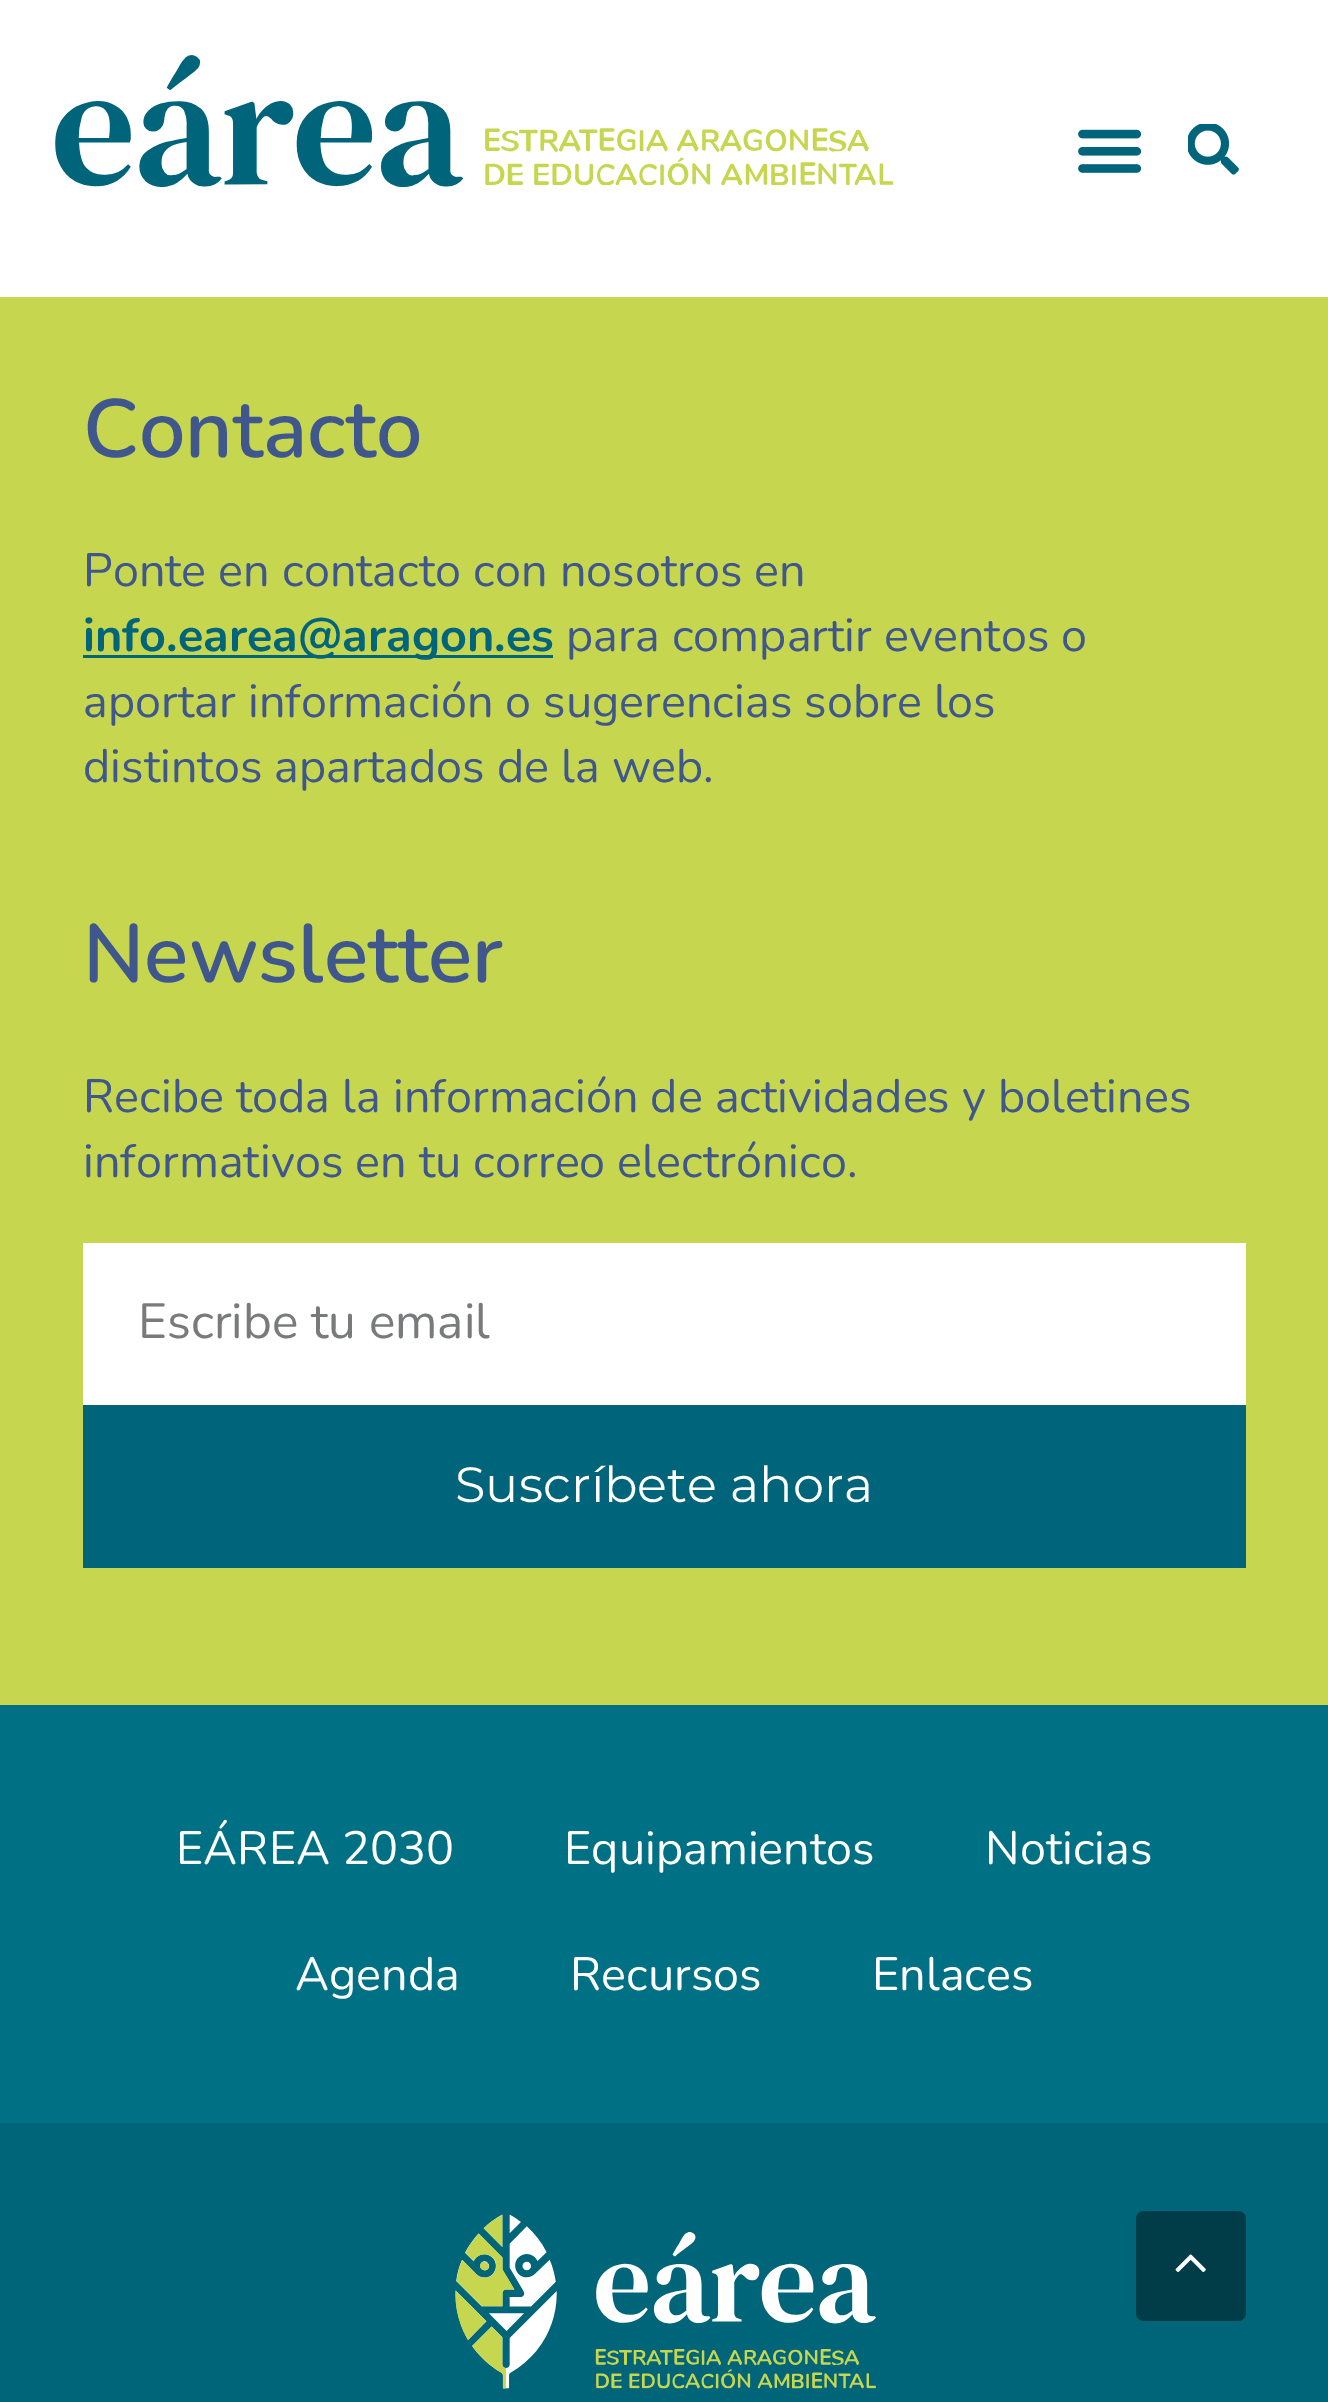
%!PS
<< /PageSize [1328 2402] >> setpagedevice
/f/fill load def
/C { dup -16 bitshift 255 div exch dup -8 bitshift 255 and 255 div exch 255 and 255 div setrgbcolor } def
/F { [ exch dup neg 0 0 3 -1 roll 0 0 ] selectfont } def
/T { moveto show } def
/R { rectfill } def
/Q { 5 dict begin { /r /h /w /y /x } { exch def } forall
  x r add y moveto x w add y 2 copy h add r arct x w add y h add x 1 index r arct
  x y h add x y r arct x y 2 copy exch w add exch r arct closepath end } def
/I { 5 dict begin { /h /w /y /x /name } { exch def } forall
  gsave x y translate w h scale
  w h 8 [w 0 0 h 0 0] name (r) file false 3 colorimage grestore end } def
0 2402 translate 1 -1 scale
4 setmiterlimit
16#C7D64F C
0 0 1328 2402 R
16#FFFFFF C
0 0 1328 297 R
(1.rgb) 55 55 839 132 I
(2.rgb) 1078 129 64 44 I
(3.rgb) 1188 124 51 51 I
/Nunito-SemiBold 82.5 F
16#40578D C
(Contacto) 83 457 T
/Nunito-Regular 46.75 F
(Ponte en contacto con nosotros en) 83 586 T
16#00647A C
83 655 470 3 R
/Nunito-Bold 46.75 F
(info.earea@aragon.es) 83 651 T
/Nunito-Regular 46.75 F
16#40578D C
(para compartir eventos o) 566 651 T
(aportar información o sugerencias sobre los) 83 717 T
(distintos apartados de la web.) 83 782 T
/Nunito-SemiBold 82.5 F
(Newsletter) 83 982 T
/Nunito-Regular 46.75 F
(Recibe toda la información de actividades y boletines) 83 1112 T
(informativos en tu correo electrónico.) 83 1177 T
16#FFFFFF C
83 1243 1163 162 R
/Nunito-Regular 49.5 F
16#797A7C C
(Escribe tu email) 138 1338 T
16#00647A C
83 1405 1163 163 R
/Montserrat-Regular 49.5 F
16#FFFFFF C
(Suscríbete ahora) 455 1502 T
16#007084 C
0 1705 1328 418 R
/Nunito-Regular 46.75 F
16#FFFFFF C
(EÁREA 2030) 176 1864 T
(Equipamientos) 564 1864 T
(Noticias) 985 1864 T
(Agenda) 295 1990 T
(Recursos) 570 1990 T
(Enlaces) 872 1990 T
16#006579 C
0 2123 1328 279 R
(4.rgb) 455 2214 421 175 I
16#003D49 C
1136 2211 110 110 8 Q f
(5.rgb) 1175 2254 31 19 I
showpage
